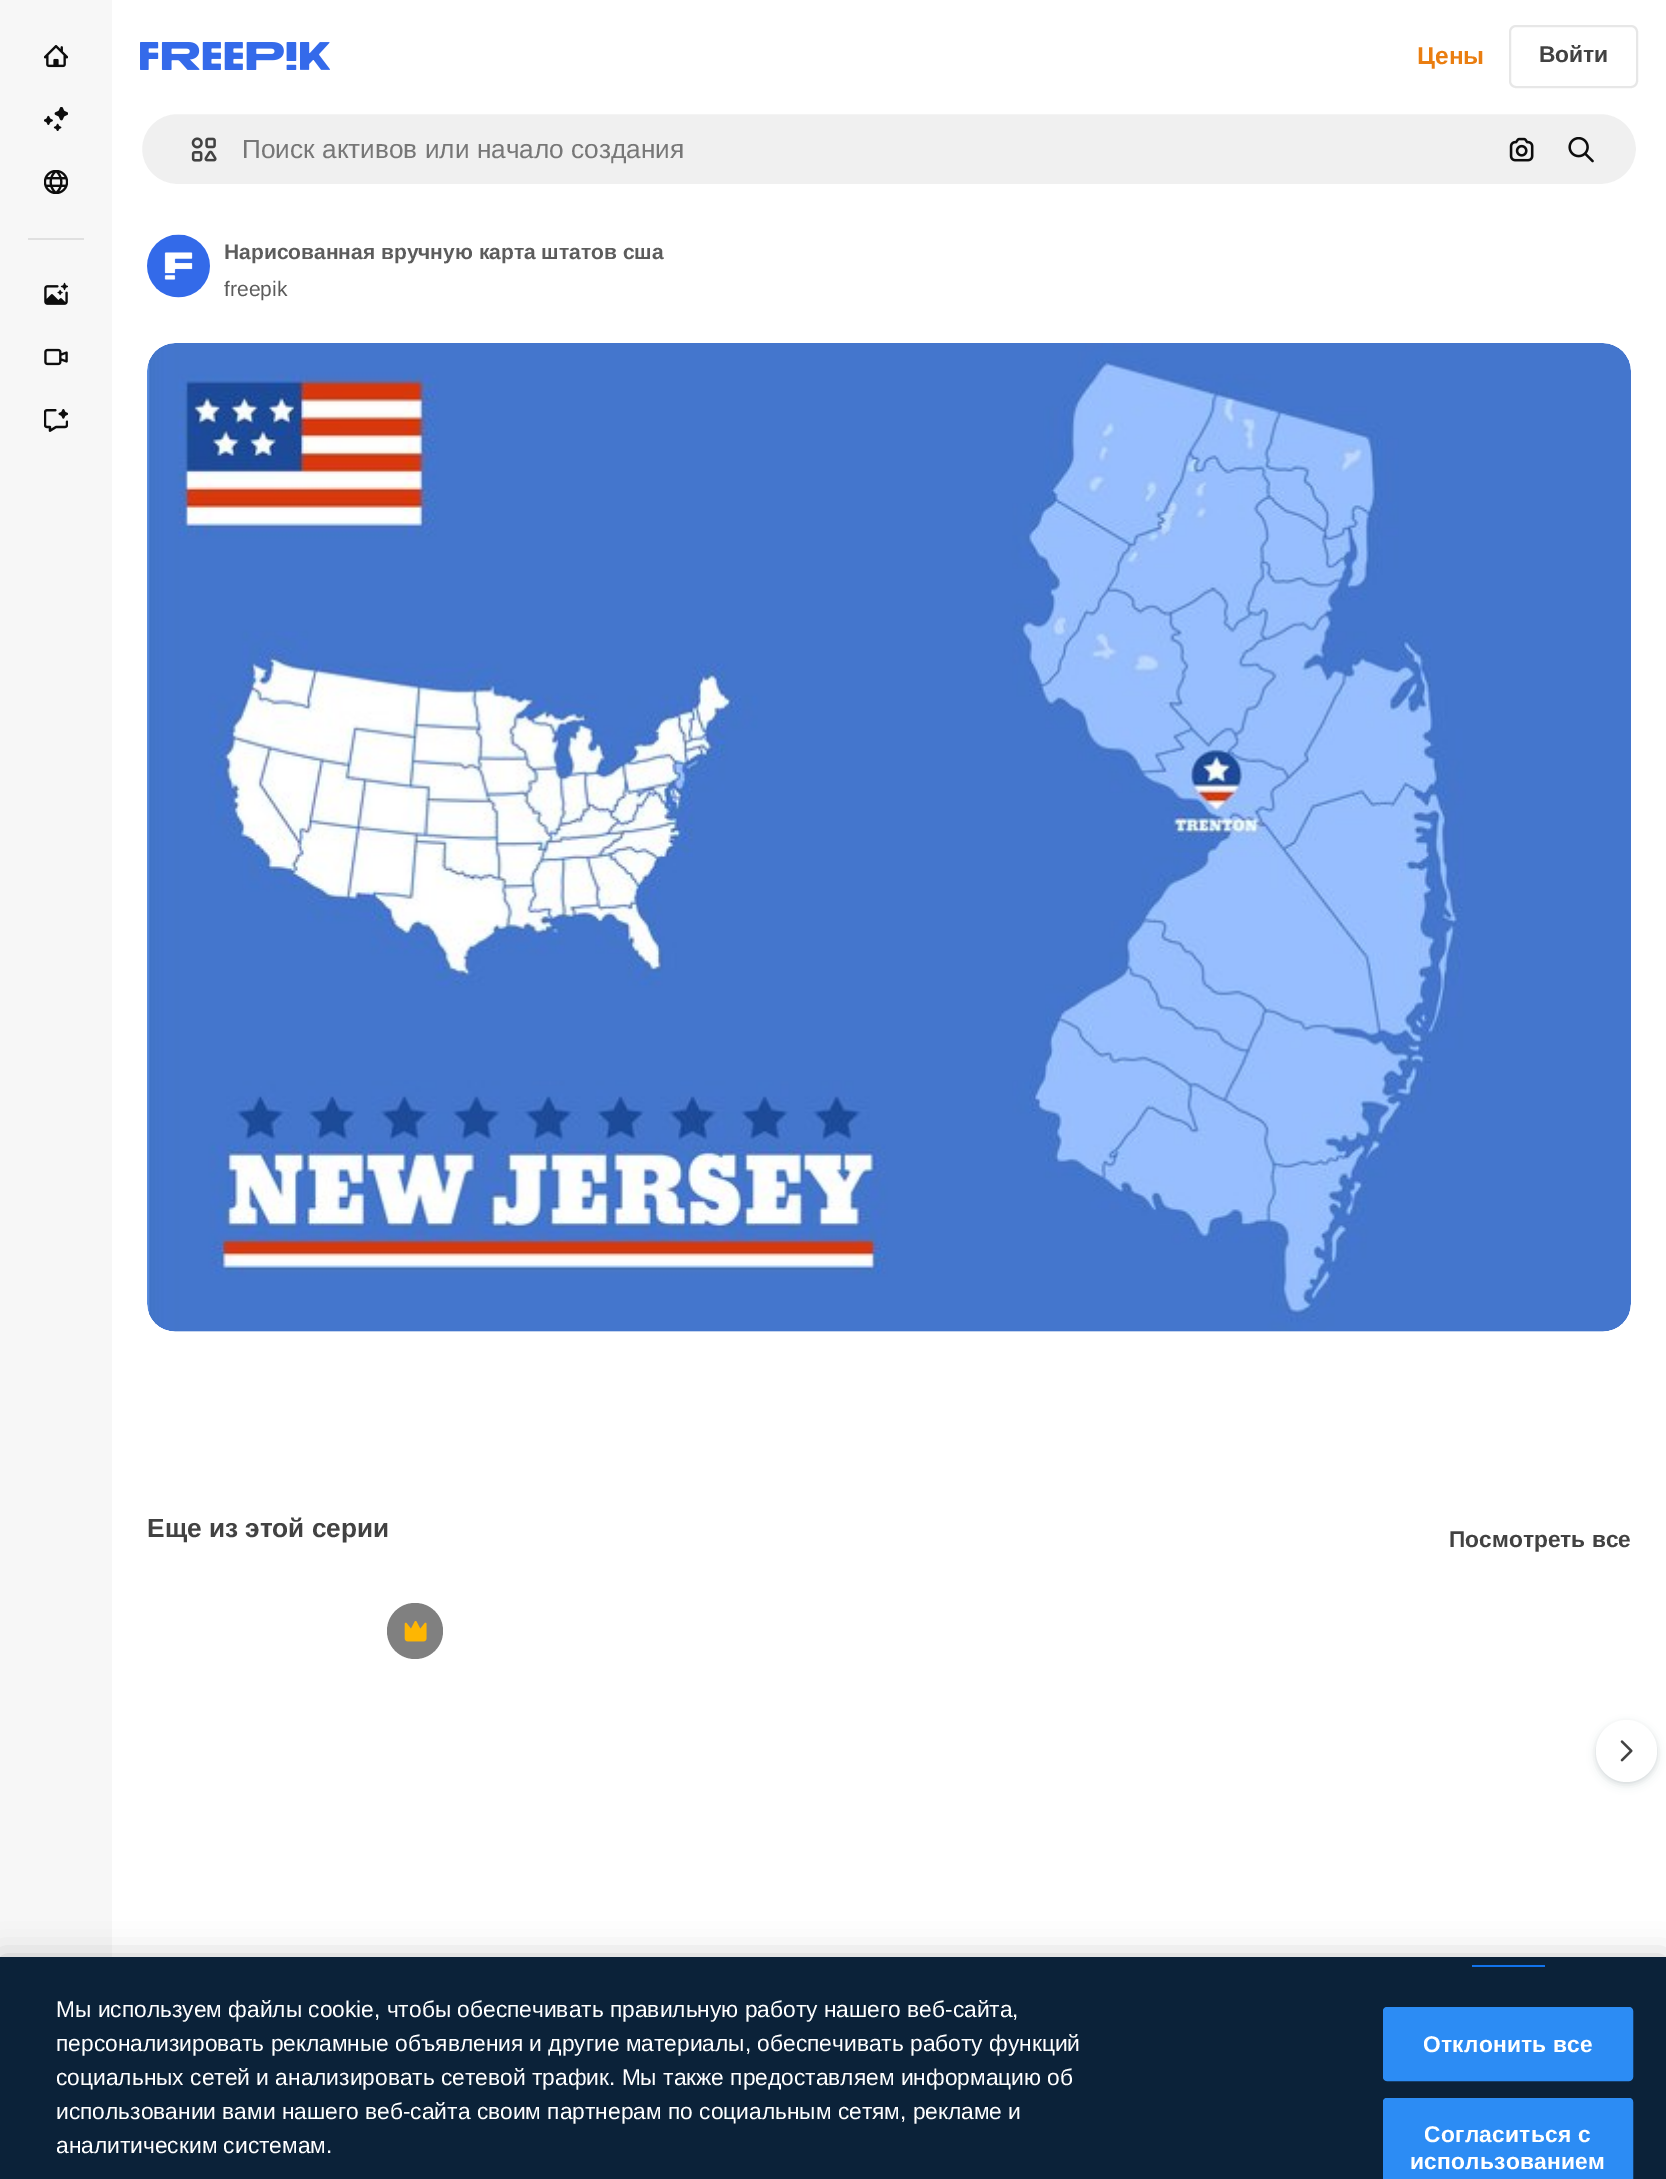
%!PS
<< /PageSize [1666 2179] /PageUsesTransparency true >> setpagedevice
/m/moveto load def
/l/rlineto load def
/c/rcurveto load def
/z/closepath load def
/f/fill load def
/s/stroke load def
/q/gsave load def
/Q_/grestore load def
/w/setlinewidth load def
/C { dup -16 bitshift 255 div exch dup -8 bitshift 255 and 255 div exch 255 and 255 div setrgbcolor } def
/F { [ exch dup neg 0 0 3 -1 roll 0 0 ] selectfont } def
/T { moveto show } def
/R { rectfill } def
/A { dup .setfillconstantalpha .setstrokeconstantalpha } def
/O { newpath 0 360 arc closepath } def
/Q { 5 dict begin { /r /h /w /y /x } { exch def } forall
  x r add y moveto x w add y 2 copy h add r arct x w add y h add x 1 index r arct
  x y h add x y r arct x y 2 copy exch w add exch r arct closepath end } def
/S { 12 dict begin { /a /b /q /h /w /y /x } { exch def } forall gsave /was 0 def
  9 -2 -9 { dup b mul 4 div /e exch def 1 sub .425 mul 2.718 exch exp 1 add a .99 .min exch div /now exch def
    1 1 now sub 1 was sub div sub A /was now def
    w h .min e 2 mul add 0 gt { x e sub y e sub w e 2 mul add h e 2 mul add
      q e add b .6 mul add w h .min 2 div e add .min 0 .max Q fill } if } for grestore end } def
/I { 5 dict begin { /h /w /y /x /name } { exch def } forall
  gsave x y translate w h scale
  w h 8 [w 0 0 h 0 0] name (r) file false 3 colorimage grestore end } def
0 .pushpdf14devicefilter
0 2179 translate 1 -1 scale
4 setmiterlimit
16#FFFFFF C
0 0 1666 2179 R
16#F7F7F7 C
0 0 112 1957 R
(1.rgb) 44 45 24 23 I
(2.rgb) 44 107 24 24 I
(3.rgb) 44 170 24 24 I
16#E0E0E0 C
28 238 56 2 R
(4.rgb) 44 282 24 23 I
(5.rgb) 44 348 24 18 I
(6.rgb) 44 409 24 23 I
(7.rgb) 140 42 190 28 I
/LiberationSans-Bold 24.5 F
16#EA7E11 C
(Цены) 1417 64 T
16#E7E7E7 C
2 w
1510 26 127 61 6 Q s
/LiberationSans-Bold 22.75 F
16#424242 C
(Войти) 1539 62 T
16#F0F0F0 C
141 113 1496 72 36 Q q f Q_
16#FFFFFF C
s
(8.rgb) 191 137 26 25 I
/LiberationSans-Regular 26.25 F
16#777777 C
(Поиск активов или начало создания) 242 158 T
(9.rgb) 1509 137 25 25 I
(10.rgb) 1568 137 26 26 I
(11.rgb) 147 234 63 64 I
/LiberationSans-Bold 21 F
16#5C5C5C C
(Нарисованная вручную карта штатов сша) 224 259 T
/LiberationSans-Regular 21 F
(freepik) 224 296 T
(12.rgb) 147 343 1484 989 I
/LiberationSans-Bold 26.25 F
16#424242 C
(Еще из этой серии) 147 1537 T
/LiberationSans-Bold 22.75 F
(Посмотреть все) 1449 1547 T
16#808080 C
415 1631 28 O f
(13.rgb) 404 1621 23 21 I
16#374957 C
1596 1724 61 61 30.5 4.5 .15 S
1596 1722 61 61 30.5 2 .1 S
16#FFFFFF C
1596 1720 61 62 30.5 Q f
(14.rgb) 1620 1740 13 22 I
16#000000 C
0 1957 1666 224 0 16 .2 S
16#0B2239 C
0 1957 1666 222 R
/LiberationSans-Regular 22.75 F
16#FFFFFF C
(Мы используем файлы cookie, чтобы обеспечивать правильную работу нашего веб-сайта,) 56 2017 T
(персонализировать рекламные объявления и другие материалы, обеспечивать работу функций) 56 2051 T
(социальных сетей и анализировать сетевой трафик. Мы также предоставляем информацию об) 56 2085 T
(использовании вами нашего веб-сайта своим партнерам по социальным сетям, рекламе и) 56 2119 T
(аналитическим системам.) 56 2153 T
16#1273EB C
1472 1965 73 2 R
16#2C8CF4 C
1384 2008 248 72 3 Q q f Q_
s
/LiberationSans-Bold 22.75 F
16#FFFFFF C
1423 2052 m .25 0 (Отклонить все) ashow
16#2C8CF4 C
1387 2098 m 242 0 l 2 0 4 2 4 4 c 0 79 l -250 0 l 0 -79 l 0 -2 2 -4 4 -4 c z f
1384 2099 248 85 3 Q s
16#FFFFFF C
1424 2142 m .25 0 (Согласиться с) ashow
1410 2169 m .25 0 (использованием) ashow
.poppdf14devicefilter showpage
